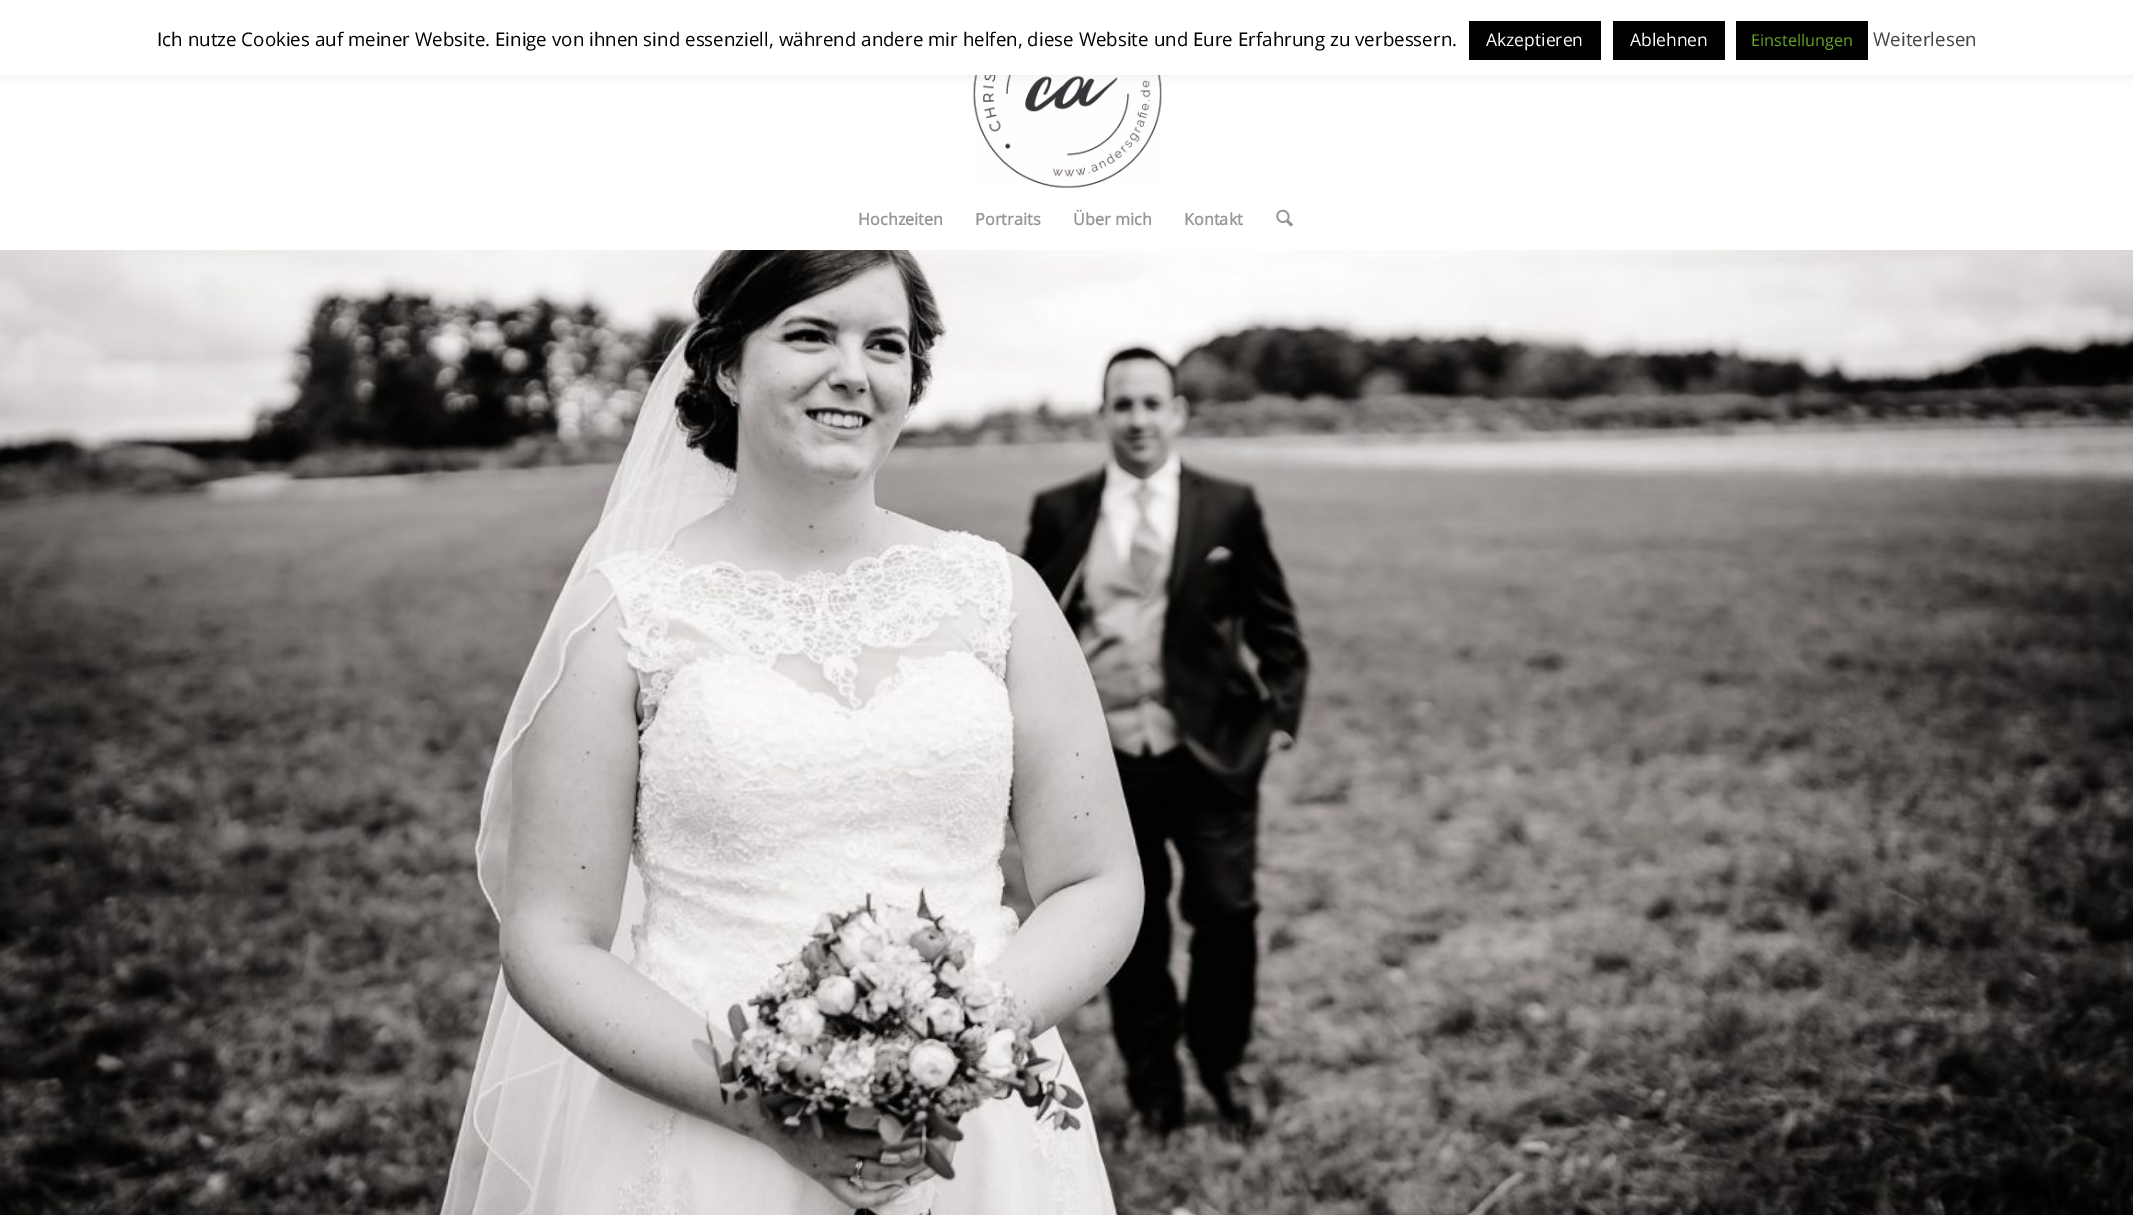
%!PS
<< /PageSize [2133 1215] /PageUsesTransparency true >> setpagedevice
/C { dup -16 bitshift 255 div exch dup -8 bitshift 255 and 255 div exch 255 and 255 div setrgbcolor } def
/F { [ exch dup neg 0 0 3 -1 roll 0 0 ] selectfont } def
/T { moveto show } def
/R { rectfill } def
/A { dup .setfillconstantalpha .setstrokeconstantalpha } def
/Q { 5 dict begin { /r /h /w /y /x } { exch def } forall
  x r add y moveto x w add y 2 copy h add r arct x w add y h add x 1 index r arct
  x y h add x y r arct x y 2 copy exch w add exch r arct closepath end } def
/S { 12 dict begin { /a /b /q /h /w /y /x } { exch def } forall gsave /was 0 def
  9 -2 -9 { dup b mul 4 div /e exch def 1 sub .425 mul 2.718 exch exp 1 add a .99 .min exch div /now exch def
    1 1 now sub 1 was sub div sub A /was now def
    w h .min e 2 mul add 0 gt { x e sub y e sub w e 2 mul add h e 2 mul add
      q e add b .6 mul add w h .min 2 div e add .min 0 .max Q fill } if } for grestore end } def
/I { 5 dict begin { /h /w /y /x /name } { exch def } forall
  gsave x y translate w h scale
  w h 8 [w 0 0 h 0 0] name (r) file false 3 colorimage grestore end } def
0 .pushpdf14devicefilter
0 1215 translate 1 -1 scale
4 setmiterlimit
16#FFFFFF C
0 0 2133 1215 R
(1.rgb) 973 75 189 113 I
16#ACABAB C
0 -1 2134 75 0 6 .3 S
16#FFFFFF C
0 0 2133 75 R
/OpenSans-Regular 18.75 F
16#000000 C
(Ich nutze Cookies auf meiner Website. Einige von ihnen sind essenziell, während andere mir helfen, diese Website und Eure Erfahrung zu verbessern.) 157 46 T
1469 21 132 39 R
/OpenSans-Regular 17.5 F
16#FFFFFF C
(Akzeptieren) 1486 46 T
16#000000 C
1613 21 112 39 R
16#FFFFFF C
(Ablehnen) 1630 46 T
16#000000 C
1736 21 132 39 R
/OpenSans-Regular 16.25 F
16#62A329 C
(Einstellungen) 1751 46 T
/OpenSans-Regular 18.75 F
16#444444 C
(Weiterlesen) 1873 46 T
/OpenSans-Bold 16.25 F
16#969696 C
(Hochzeiten) 858 225 T
(Portraits) 975 225 T
(Über mich) 1073 225 T
(Kontakt) 1184 225 T
(2.rgb) 1276 209 17 18 I
(3.rgb) 0 250 2133 965 I
.poppdf14devicefilter showpage
